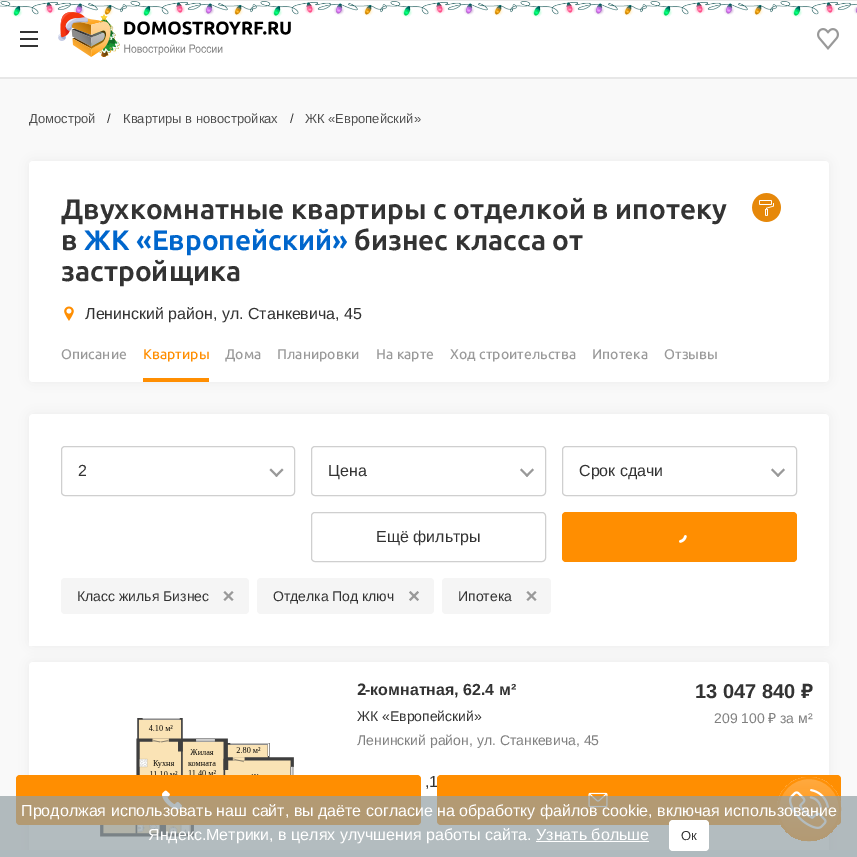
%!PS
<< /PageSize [857 857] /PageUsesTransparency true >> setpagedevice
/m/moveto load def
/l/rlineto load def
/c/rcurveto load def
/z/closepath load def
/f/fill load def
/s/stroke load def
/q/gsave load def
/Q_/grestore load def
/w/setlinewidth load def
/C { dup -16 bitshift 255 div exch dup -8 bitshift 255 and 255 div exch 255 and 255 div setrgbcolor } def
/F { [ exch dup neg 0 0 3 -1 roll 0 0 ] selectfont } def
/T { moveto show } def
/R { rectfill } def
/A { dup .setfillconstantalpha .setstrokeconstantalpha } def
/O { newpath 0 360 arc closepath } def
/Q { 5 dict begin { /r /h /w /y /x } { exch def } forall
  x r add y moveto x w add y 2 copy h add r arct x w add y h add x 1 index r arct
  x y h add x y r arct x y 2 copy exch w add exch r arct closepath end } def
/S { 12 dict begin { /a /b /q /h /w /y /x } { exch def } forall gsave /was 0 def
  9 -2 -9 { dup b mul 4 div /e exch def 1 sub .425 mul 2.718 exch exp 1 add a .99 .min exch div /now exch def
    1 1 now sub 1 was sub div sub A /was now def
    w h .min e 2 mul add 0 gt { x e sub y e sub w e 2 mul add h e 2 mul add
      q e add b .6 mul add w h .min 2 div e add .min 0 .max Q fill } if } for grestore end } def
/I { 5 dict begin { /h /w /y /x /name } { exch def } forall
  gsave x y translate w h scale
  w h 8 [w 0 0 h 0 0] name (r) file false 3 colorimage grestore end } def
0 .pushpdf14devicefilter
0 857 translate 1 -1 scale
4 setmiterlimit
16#F9F9F9 C
0 0 857 857 R
16#FFFFFF C
0 1 857 76 R
16#E7E7E7 C
0 0 857 1 R
(1.rgb) 0 1 857 16 I
16#333333 C
20 38 18 2 R
20 31 18 2 R
20 45 18 2 R
(3.rgb) 90 14 30 43 I
(4.rgb) 71 18 220 39 I
(2.rgb) 58 12 30 29 I
(5.rgb) 817 28 22 22 I
16#E7E7E7 C
0 77 857 2 R
/LiberationSans-Regular 13 F
16#4F4F4F C
(Домострой) 29 123 T
16#333333 C
(/) 107 123 T
16#4F4F4F C
(Квартиры в новостройках) 123 123 T
16#333333 C
(/) 290 123 T
16#4F4F4F C
(ЖК «Европейский») 305 123 T
16#000000 C
29 161 800 221 4 6 .06 S
16#FFFFFF C
29 161 800 221 4 Q f
/Ubuntu-Bold 28 F
16#333333 C
(Двухкомнатные квартиры с отделкой в ипотеку) 61 219 T
(в) 61 250 T
16#0066CC C
(ЖК «Европейский») 84 250 T
16#333333 C
(бизнес класса от) 354 250 T
(застройщика) 61 281 T
(6.rgb) 752 193 29 29 I
(7.rgb) 64 306 10 15 I
/LiberationSans-Regular 16 F
(Ленинский район, ул. Станкевича, 45) 85 319 T
/Ubuntu-Medium 14 F
16#999999 C
(Описание) 61 359 T
16#FF8E01 C
(Квартиры) 143 359 T
143 378 66 4 R
16#999999 C
(Дома) 225 359 T
(Планировки) 277 359 T
(На карте) 376 359 T
(Ход строительства) 450 359 T
(Ипотека) 592 359 T
(Отзывы) 664 359 T
16#000000 C
29 414 800 232 4 6 .06 S
16#FFFFFF C
33 414 m 792 0 l 2 0 4 2 4 4 c 0 228 l -800 0 l 0 -228 l 0 -2 2 -4 4 -4 c z f
16#CFCFCF C
61.5 446.5 233 49 3.5 Q s
/LiberationSans-Regular 16 F
16#333333 C
(2) 78 476 T
16#999999 C
282 468.5 m 1.5 1.5 l -7 7 l -1.5 -1.5 l z f
271 468.5 m 7 7 l -1.5 1.5 l -7 -7 l z f
16#CFCFCF C
311.5 446.5 234 49 3.5 Q s
16#333333 C
(Цена) 328 476 T
16#999999 C
532.5 468.5 m 1.5 1.5 l -7 7 l -1.5 -1.5 l z f
521.5 468.5 m 7 7 l -1.5 1.5 l -7 -7 l z f
16#CFCFCF C
562.5 446.5 234 49 3.5 Q s
16#333333 C
(Срок сдачи) 579 476 T
16#999999 C
783.5 468.5 m 1.5 1.5 l -7 7 l -1.5 -1.5 l z f
772.5 468.5 m 7 7 l -1.5 1.5 l -7 -7 l z f
16#CFCFCF C
311.5 512.5 234 49 3.5 Q s
16#333333 C
(Ещё фильтры) 376 542 T
16#FF8E01 C
562 512 235 50 4 Q f
(8.rgb) 679 535 8 8 I
16#F5F5F5 C
61 578 188 36 4 Q f
/LiberationSans-Regular 14 F
16#333333 C
(Класс жилья Бизнес) 77 601 T
16#999999 C
223.5 599.5 m 8.5 -8.5 l 1.5 1.5 l -8.5 8.5 l z f
225 591 m 8.5 8.5 l -1.5 1.5 l -8.5 -8.5 l z f
16#F5F5F5 C
257 578 177 36 4 Q f
16#333333 C
(Отделка Под ключ) 273 601 T
16#999999 C
409 599.5 m 8.5 -8.5 l 1.5 1.5 l -8.5 8.5 l z f
410.5 591 m 8.5 8.5 l -1.5 1.5 l -8.5 -8.5 l z f
16#F5F5F5 C
442 578 109 36 4 Q f
16#333333 C
(Ипотека) 458 601 T
16#999999 C
526.5 599.5 m 8.5 -8.5 l 1.5 1.5 l -8.5 8.5 l z f
528 591 m 8.5 8.5 l -1.5 1.5 l -8.5 -8.5 l z f
16#000000 C
29 662 800 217 4 6 .06 S
16#FFFFFF C
29 662 800 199 4 Q f
/NotoSans-Bold 16 F
16#333333 C
(2) 357 695 T
/LiberationSans-Bold 16 F
(-комнатная, 62.4 м²) 365 695 T
/LiberationSans-Regular 14 F
(ЖК «Европейский») 357 721 T
16#808080 C
(Ленинский район, ул. Станкевича, 45) 357 745 T
/LiberationSans-Bold 20 F
16#333333 C
(13 047 840) 695 698 T
/NotoSans-Bold 20 F
(₽) 801 698 T
/LiberationSans-Regular 14 F
16#808080 C
(209 100) 714 723 T
/NotoSans-Regular 14 F
(₽) 768 723 T
/LiberationSans-Regular 14 F
(за м²) 780 723 T
(9.rgb) 100 718 194 119 I
/LiberationSans-Regular 16 F
16#333333 C
(,1) 425 787 T
16#FF8E01 C
16 775 405 50 4 Q f
(10.rgb) 162 790 20 20 I
437 775 404 50 4 Q f
(11.rgb) 588 792 20 16 I
q 809 809 32 O clip newpath
<< /ShadingType 2 /ColorSpace /DeviceRGB /Coords [809 777 809 841] /Extend [true true] /Function << /FunctionType 2 /Domain [0 1] /C0 [1 .667 .255] /C1 [1 .557 .004] /N 1 >> >> shfill Q_
(12.rgb) 789 789 40 40 I
0.9 A
2 w
809 809 31 O s
1 A
16#F1F9FC C
0 850 857 7 R
0.7 A
16#939FA4 C
0 796 857 61 R
1 A
16#FFFFFF C
(Продолжая использовать наш сайт, вы даёте согласие на обработку файлов cookie, включая использование) 21 816 T
(Яндекс.Метрики, в целях улучшения работы сайта. Узнать больше) 148 840 T
669 820 40 31 4 Q f
/LiberationSans-Regular 13 F
16#333333 C
(Ок) 681 840 T
16#FFFFFF C
536 841 113 1 R
.poppdf14devicefilter showpage
